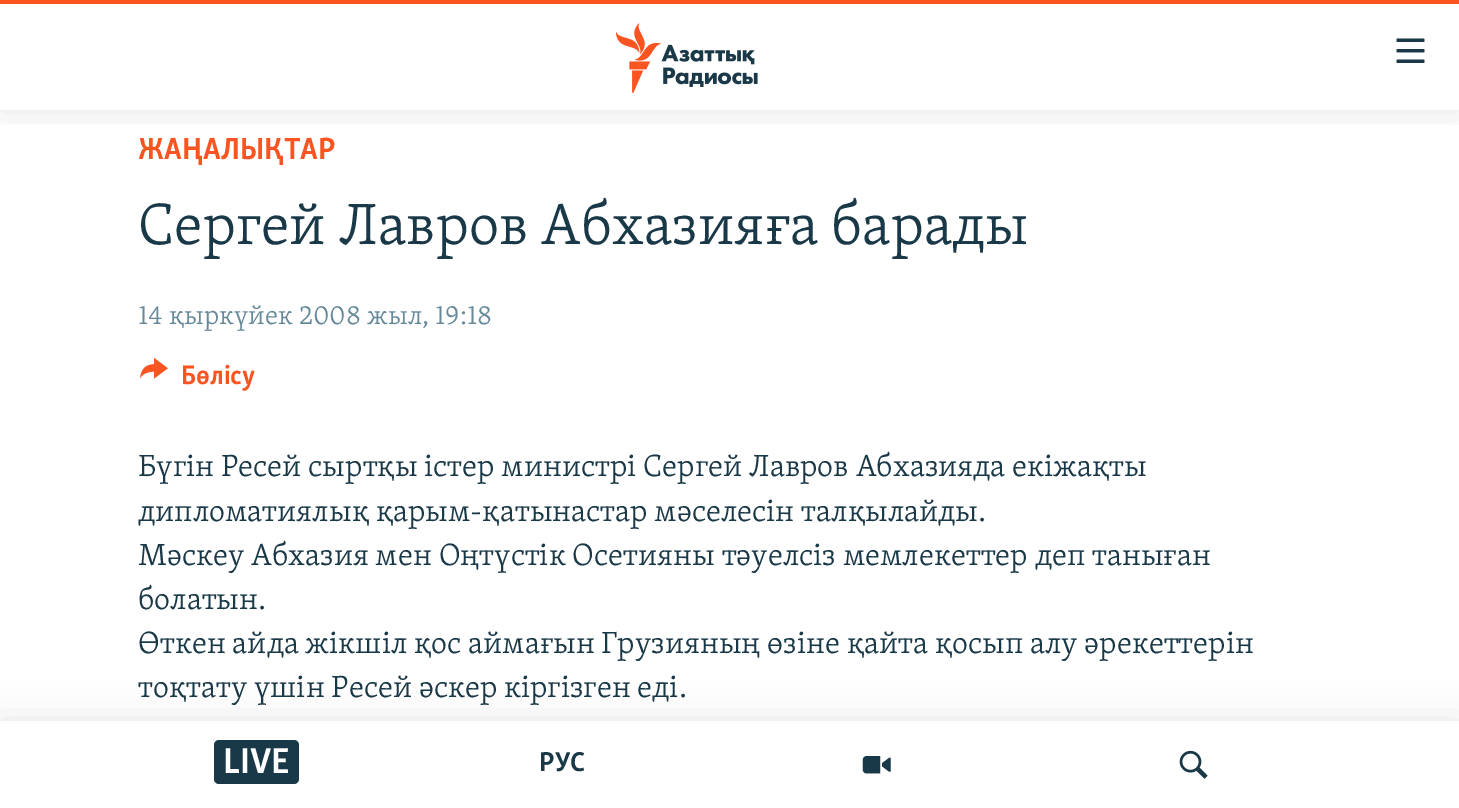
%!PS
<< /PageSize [1459 808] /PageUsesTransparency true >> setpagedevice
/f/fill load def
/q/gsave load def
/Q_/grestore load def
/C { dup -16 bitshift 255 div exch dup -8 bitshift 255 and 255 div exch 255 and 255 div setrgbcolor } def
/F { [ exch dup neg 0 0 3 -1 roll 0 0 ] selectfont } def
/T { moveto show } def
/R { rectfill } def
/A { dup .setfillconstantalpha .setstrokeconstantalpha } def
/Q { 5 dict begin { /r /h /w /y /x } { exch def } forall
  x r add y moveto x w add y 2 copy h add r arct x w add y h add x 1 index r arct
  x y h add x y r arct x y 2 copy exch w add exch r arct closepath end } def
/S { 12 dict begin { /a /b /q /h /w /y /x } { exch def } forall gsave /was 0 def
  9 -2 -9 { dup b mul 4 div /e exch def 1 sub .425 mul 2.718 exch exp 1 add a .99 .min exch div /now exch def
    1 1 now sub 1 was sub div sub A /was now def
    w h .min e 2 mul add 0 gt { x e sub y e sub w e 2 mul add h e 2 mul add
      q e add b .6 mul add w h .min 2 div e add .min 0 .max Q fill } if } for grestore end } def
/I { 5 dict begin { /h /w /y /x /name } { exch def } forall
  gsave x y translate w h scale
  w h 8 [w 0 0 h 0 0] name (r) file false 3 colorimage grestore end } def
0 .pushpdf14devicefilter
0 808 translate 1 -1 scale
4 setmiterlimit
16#FFFFFF C
0 0 1459 808 R
/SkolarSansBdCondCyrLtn-Bold 31.5 F
16#FA5420 C
(ЖАҢАЛЫҚТАР) 138 159 T
/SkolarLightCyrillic-Light 59.8 F
16#1A3948 C
(Сергей Лавров Абхазияға барады) 138 244 T
/SkolarLightCyrillic-Light 27.5 F
16#678A9B C
(14 қыркүйек 2008 жыл, 19:18) 138 324 T
(1.rgb) 140 357 28 22 I
/SkolarSansBdCondCyrLtn-Bold 27.5 F
16#FA5420 C
(Бөлісу) 181 384 T
/SkolarLightCyrillic-Light 31.5 F
16#1A3948 C
(Бүгін Ресей сыртқы істер министрі Сергей Лавров Абхазияда екіжақты) 138 476 T
(дипломатиялық қарым-қатынастар мәселесін талқылайды.) 138 521 T
(Мәскеу Абхазия мен Оңтүстік Осетияны тәуелсіз мемлекеттер деп таныған) 138 565 T
(болатын.) 138 609 T
(Өткен айда жікшіл қос аймағын Грузияның өзіне қайта қосып алу әрекеттерін) 138 653 T
(тоқтату үшін Ресей әскер кіргізген еді.) 138 697 T
q
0 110 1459 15 rectclip
16#000000 C
0 0 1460 110 0 17.5 .1 S
Q_
16#FA5420 C
0 0 1459 4 R
(2.rgb) 616 23 142 70 I
(3.rgb) 1396 38 29 25 I
16#000000 C
0 721 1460 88 0 17.5 .1 S
16#FFFFFF C
0 721 1459 87 R
16#1A3948 C
214 740 85 44 5 Q f
/SkolarSansBdCondCyrLtn-Bold 37 F
16#FFFFFF C
(LIVE) 223 773 T
/SkolarSansBdCondCyrLtn-Bold 28 F
16#1A3948 C
(РУС) 539 771 T
(4.rgb) 862 756 29 18 I
(5.rgb) 1179 750 29 29 I
.poppdf14devicefilter showpage
